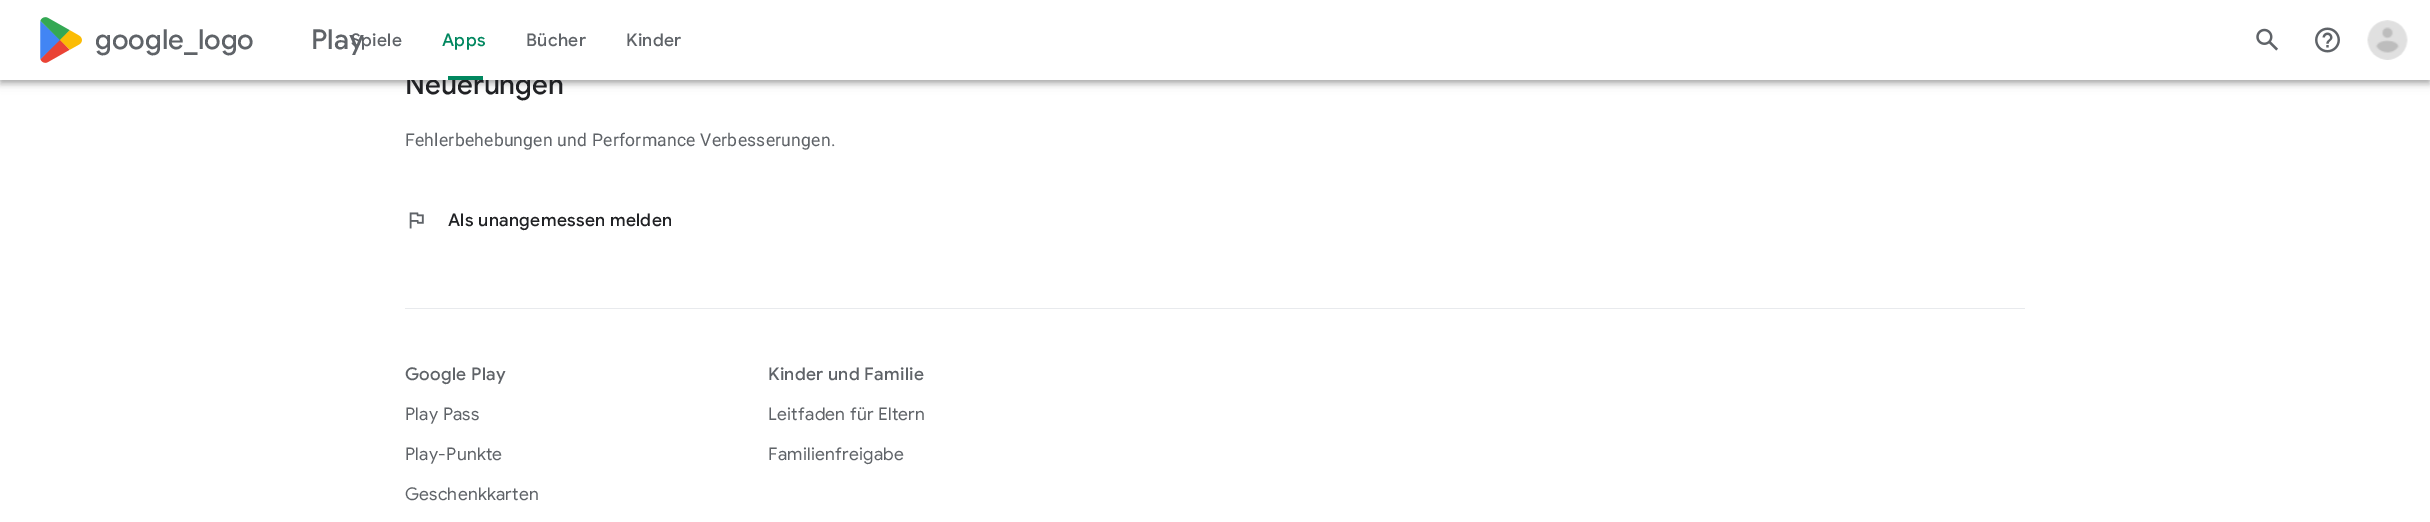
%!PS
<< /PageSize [2430 522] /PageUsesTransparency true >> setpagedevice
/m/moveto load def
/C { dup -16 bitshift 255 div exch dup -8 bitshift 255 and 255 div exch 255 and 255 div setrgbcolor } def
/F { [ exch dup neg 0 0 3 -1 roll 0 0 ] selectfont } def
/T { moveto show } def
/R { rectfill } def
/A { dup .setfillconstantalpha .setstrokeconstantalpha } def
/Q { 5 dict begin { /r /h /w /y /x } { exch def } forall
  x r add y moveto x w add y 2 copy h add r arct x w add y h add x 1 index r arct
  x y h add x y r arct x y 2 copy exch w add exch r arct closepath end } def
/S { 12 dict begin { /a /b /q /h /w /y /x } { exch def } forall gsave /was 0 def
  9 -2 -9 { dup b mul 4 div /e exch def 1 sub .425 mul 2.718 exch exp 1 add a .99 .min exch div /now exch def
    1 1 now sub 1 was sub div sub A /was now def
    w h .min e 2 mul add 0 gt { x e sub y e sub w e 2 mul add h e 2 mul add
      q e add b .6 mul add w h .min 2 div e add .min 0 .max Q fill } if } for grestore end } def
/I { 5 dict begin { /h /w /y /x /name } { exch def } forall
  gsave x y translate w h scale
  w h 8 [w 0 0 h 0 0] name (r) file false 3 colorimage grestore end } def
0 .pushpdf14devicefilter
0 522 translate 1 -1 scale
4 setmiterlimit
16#FFFFFF C
0 0 2430 522 R
16#000000 C
1 4 2428 77 0 2.5 .2 S
0 1 2430 80 0 6 .12 S
0 5 2430 80 0 3 .14 S
/GoogleSans-Medium 27.5 F
16#202124 C
(Neuerungen) 405 94 T
16#FFFFFF C
0 0 2430 80 R
(1.rgb) 40 17 42 46 I
16#5F6368 C
95 49 m 69 0 32 (google_logo) widthshow
311 49 m 69 0 32 (Play) widthshow
/GoogleSans-Medium 17.5 F
351 46 m .3 0 (Spiele) ashow
16#01875F C
442 46 m .3 0 (Apps) ashow
448 76 35 4 R
16#5F6368 C
526 46 m .3 0 (Bücher) ashow
626 46 m .3 0 (Kinder) ashow
(2.rgb) 2256 28 22 23 I
(3.rgb) 2315 27 25 26 I
(4.rgb) 2367 20 41 40 I
/Roboto-Regular 17.5 F
405 146 m .25 0 (Fehlerbehebungen und Performance Verbesserungen.) ashow
(5.rgb) 409 212 15 17 I
/GoogleSans-Medium 17.5 F
16#202124 C
448 226 m .3 0 (Als unangemessen melden) ashow
16#E8EAED C
405 308 1620 1 R
16#5F6368 C
405 380 m .3 0 (Google Play) ashow
/GoogleSans-Regular 17.5 F
405 420 m .25 0 (Play Pass) ashow
405 460 m .25 0 (Play-Punkte) ashow
405 500 m .25 0 (Geschenkkarten) ashow
/GoogleSans-Medium 17.5 F
768 380 m .3 0 (Kinder und Familie) ashow
/GoogleSans-Regular 17.5 F
768 420 m .25 0 (Leitfaden für Eltern) ashow
768 460 m .25 0 (Familienfreigabe) ashow
.poppdf14devicefilter showpage
